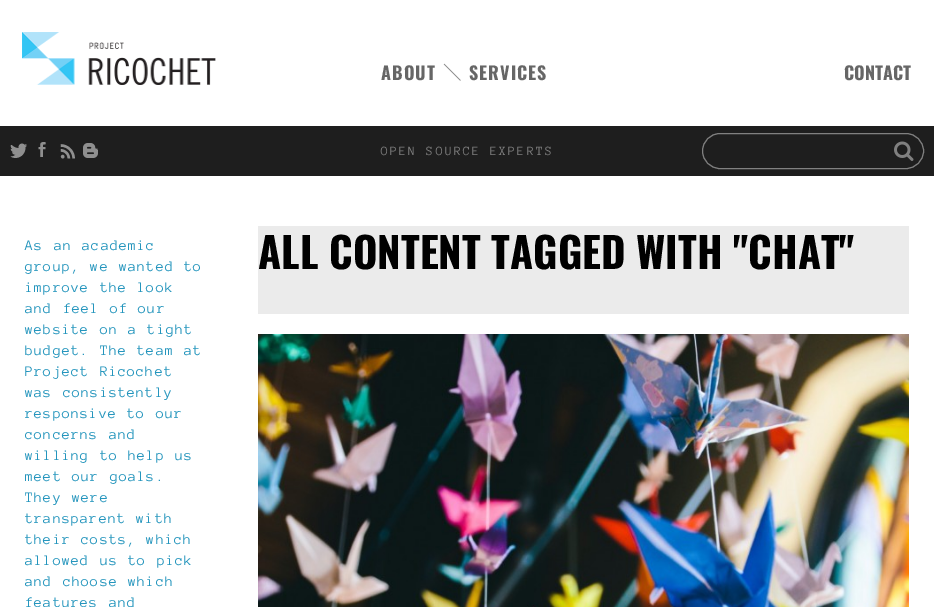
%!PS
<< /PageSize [934 607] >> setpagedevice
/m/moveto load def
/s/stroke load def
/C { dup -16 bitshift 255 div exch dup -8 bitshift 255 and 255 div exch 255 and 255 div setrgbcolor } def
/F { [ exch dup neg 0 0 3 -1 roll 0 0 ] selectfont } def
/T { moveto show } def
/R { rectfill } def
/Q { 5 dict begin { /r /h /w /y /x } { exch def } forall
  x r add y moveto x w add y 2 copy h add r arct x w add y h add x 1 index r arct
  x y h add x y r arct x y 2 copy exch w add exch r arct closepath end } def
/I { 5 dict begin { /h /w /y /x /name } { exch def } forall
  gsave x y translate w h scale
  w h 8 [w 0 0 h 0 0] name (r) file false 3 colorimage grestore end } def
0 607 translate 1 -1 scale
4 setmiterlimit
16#FFFFFF C
0 0 934 607 R
(1.rgb) 22 32 194 53 I
(2.rgb) 443 63 18 18 I
/Oswald-Bold 18 F
16#666666 C
381 80 m 1 0 (ABOUT) ashow
469 80 m 1 0 (SERVICES) ashow
(CONTACT) 844 80 T
16#1E1E1E C
0 126 934 50 R
(3.rgb) 10 143 17 15 I
(4.rgb) 38 142 8 15 I
(5.rgb) 60 144 15 15 I
(6.rgb) 83 143 15 15 I
/AnonymousPro-Regular 13 F
16#808080 C
381 155 m 2 0 (OPEN SOURCE EXPERTS) ashow
702.5 133.5 221 35 17.5 Q s
(7.rgb) 894 141 20 20 I
/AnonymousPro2-Regular 15 F
16#2495BD C
25 250 m 1 0 32 1 0 (As an academic) awidthshow
25 271 m 1 0 32 1 0 (group, we wanted to) awidthshow
25 292 m 1 0 32 1 0 (improve the look) awidthshow
25 313 m 1 0 32 1 0 (and feel of our) awidthshow
25 334 m 1 0 32 1 0 (website on a tight) awidthshow
25 355 m 1 0 32 1 0 (budget. The team at) awidthshow
25 376 m 1 0 32 1 0 (Project Ricochet) awidthshow
25 397 m 1 0 32 1 0 (was consistently) awidthshow
25 418 m 1 0 32 1 0 (responsive to our) awidthshow
25 439 m 1 0 32 1 0 (concerns and) awidthshow
25 460 m 1 0 32 1 0 (willing to help us) awidthshow
25 481 m 1 0 32 1 0 (meet our goals.) awidthshow
25 502 m 1 0 32 1 0 (They were) awidthshow
25 523 m 1 0 32 1 0 (transparent with) awidthshow
25 544 m 1 0 32 1 0 (their costs, which) awidthshow
25 565 m 1 0 32 1 0 (allowed us to pick) awidthshow
25 586 m 1 0 32 1 0 (and choose which) awidthshow
25 607 m 1 0 32 1 0 (features and) awidthshow
16#EBEBEB C
258 226 651 88 R
/Oswald-Bold 42 F
16#000000 C
(ALL CONTENT TAGGED WITH "CHAT") 258 269 T
(8.rgb) 258 334 651 273 I
showpage
